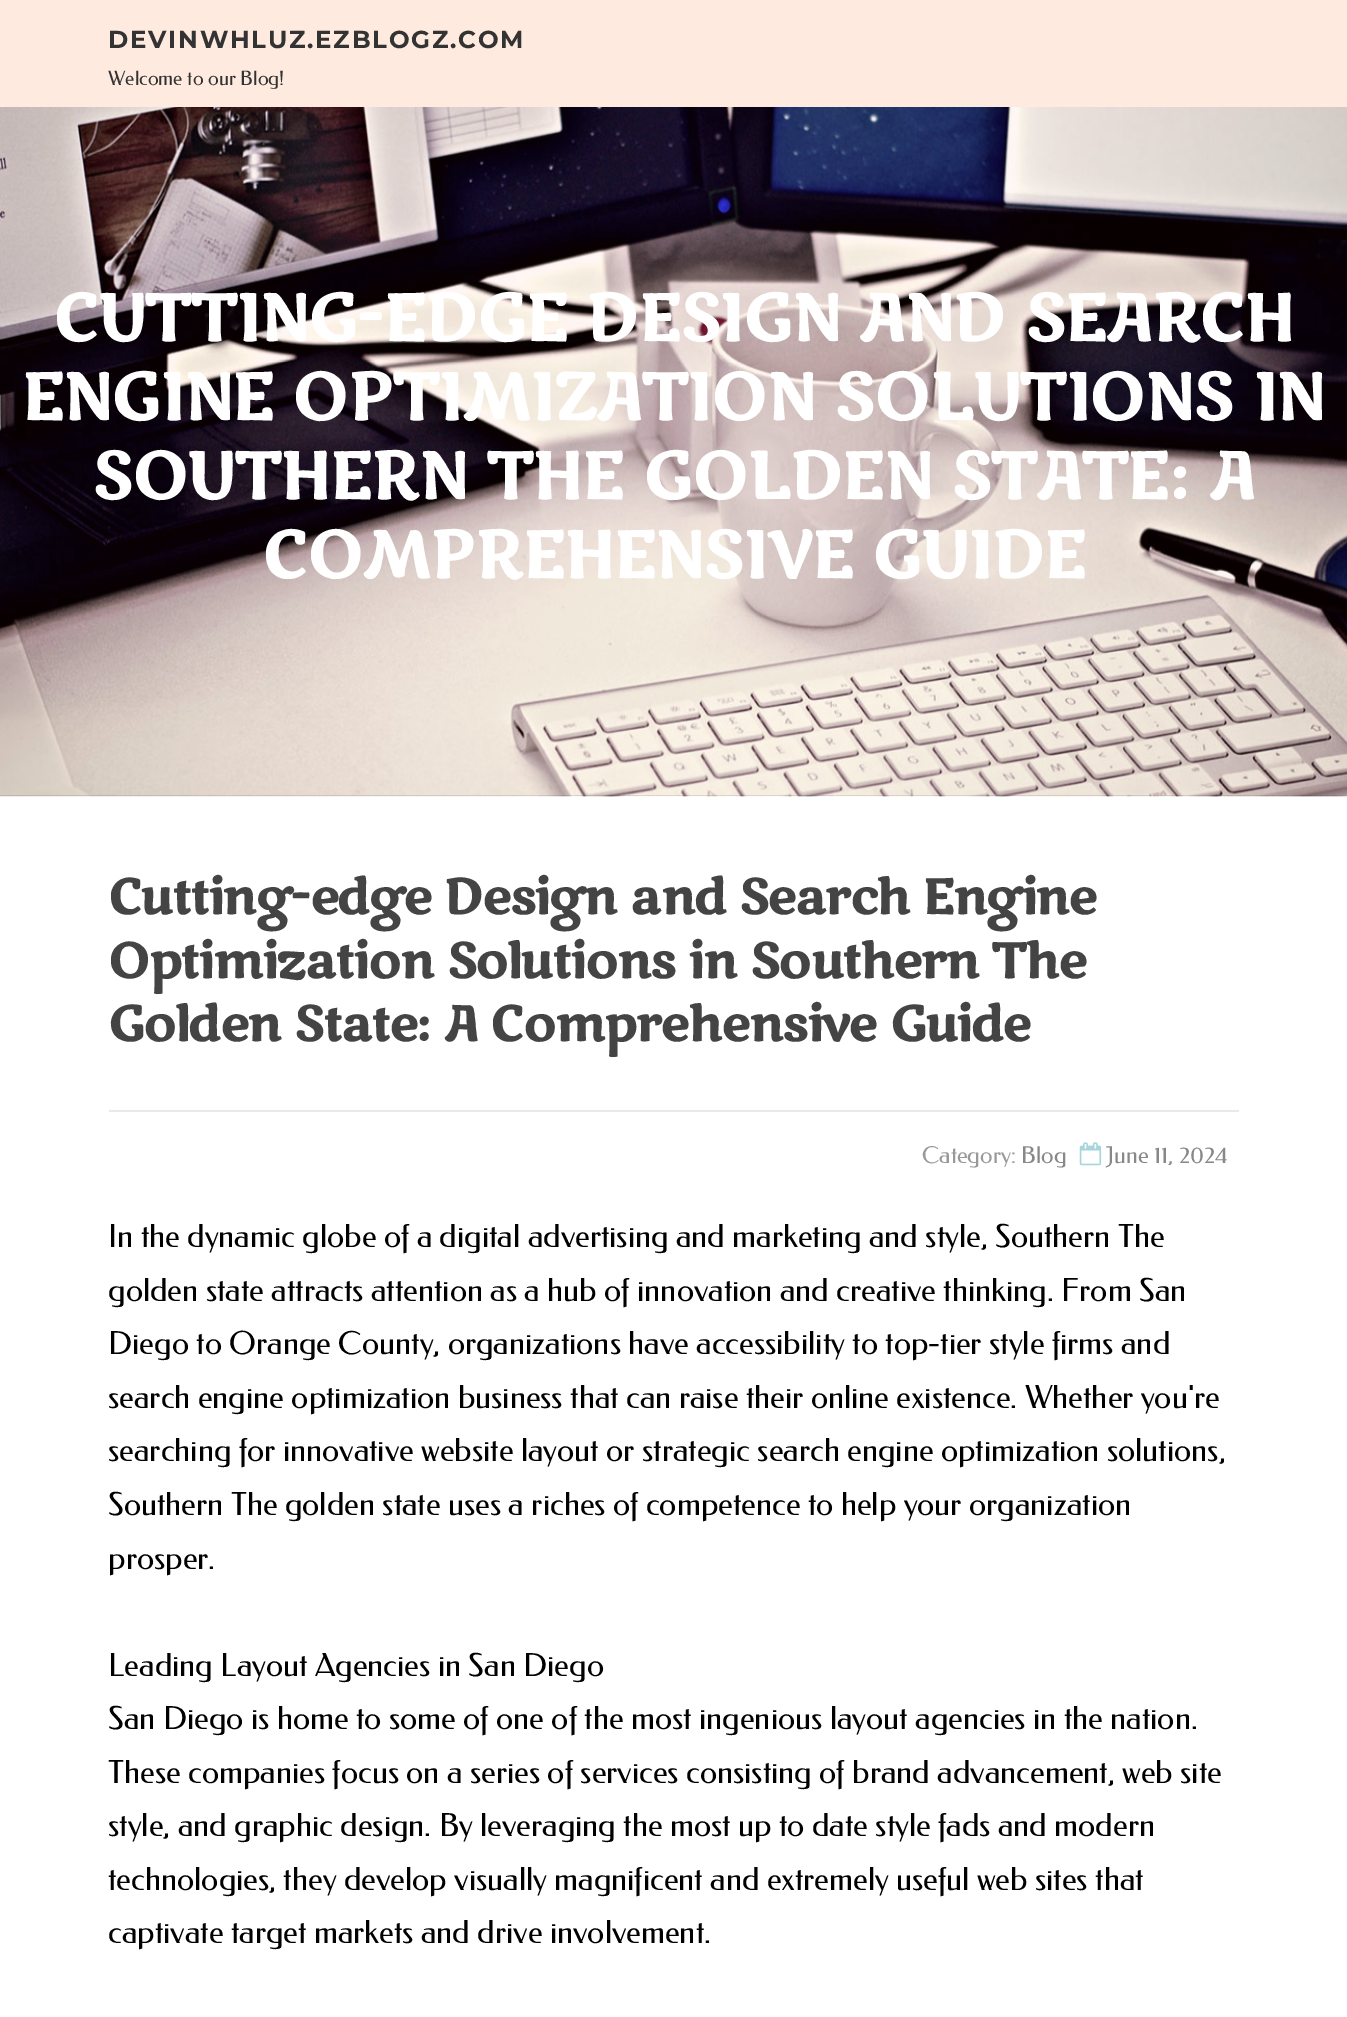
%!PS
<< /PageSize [1347 2017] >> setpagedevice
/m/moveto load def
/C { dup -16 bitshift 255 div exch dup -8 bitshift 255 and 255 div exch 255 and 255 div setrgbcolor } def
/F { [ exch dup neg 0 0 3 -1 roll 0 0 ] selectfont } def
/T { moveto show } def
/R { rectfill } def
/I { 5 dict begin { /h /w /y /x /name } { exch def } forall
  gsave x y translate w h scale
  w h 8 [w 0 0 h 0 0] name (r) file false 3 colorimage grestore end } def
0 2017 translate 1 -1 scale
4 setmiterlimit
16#FFFFFF C
0 0 1347 2017 R
16#FFEAE0 C
0 0 1347 107 R
/Montserrat-Bold 24.5 F
16#333333 C
108 48 m 1.75 0 (DEVINWHLUZ.EZBLOGZ.COM) ashow
/Federo-Regular 19.75 F
(Welcome to our Blog!) 108 85 T
(1.rgb) 0 107 1347 690 I
/MarkoOne-Bold 65.6 F
16#FFFFFF C
(CUTTING-EDGE DESIGN AND SEARCH) 53 341 T
(ENGINE OPTIMIZATION SOLUTIONS IN) 22 420 T
(SOUTHERN THE GOLDEN STATE: A) 92 499 T
(COMPREHENSIVE GUIDE) 262 578 T
/MarkoOne-Bold 49 F
16#444444 C
108 914 m -1.05 0 (Cutting-edge Design and Search Engine) ashow
108 978 m -1.05 0 (Optimization Solutions in Southern The) ashow
108 1041 m -1.05 0 (Golden State: A Comprehensive Guide) ashow
16#E9E9E9 C
109 1110 1130 2 R
/Federo-Regular 23 F
16#999999 C
(Category:) 922 1163 T
16#888888 C
(Blog) 1021 1163 T
(2.rgb) 1079 1142 23 24 I
(June 11, 2024) 1106 1163 T
/Federo-Regular 31.5 F
16#000000 C
(In the dynamic globe of a digital advertising and marketing and style, Southern The) 108 1247 T
(golden state attracts attention as a hub of innovation and creative thinking. From San) 108 1301 T
(Diego to Orange County, organizations have accessibility to top-tier style firms and) 108 1354 T
(search engine optimization business that can raise their online existence. Whether you're) 108 1408 T
(searching for innovative website layout or strategic search engine optimization solutions,) 108 1461 T
(Southern The golden state uses a riches of competence to help your organization) 108 1515 T
(prosper.) 108 1569 T
(Leading Layout Agencies in San Diego) 108 1676 T
(San Diego is home to some of one of the most ingenious layout agencies in the nation.) 108 1729 T
(These companies focus on a series of services consisting of brand advancement, web site) 108 1783 T
(style, and graphic design. By leveraging the most up to date style fads and modern) 108 1836 T
(technologies, they develop visually magnificent and extremely useful web sites that) 108 1890 T
(captivate target markets and drive involvement.) 108 1943 T
showpage
